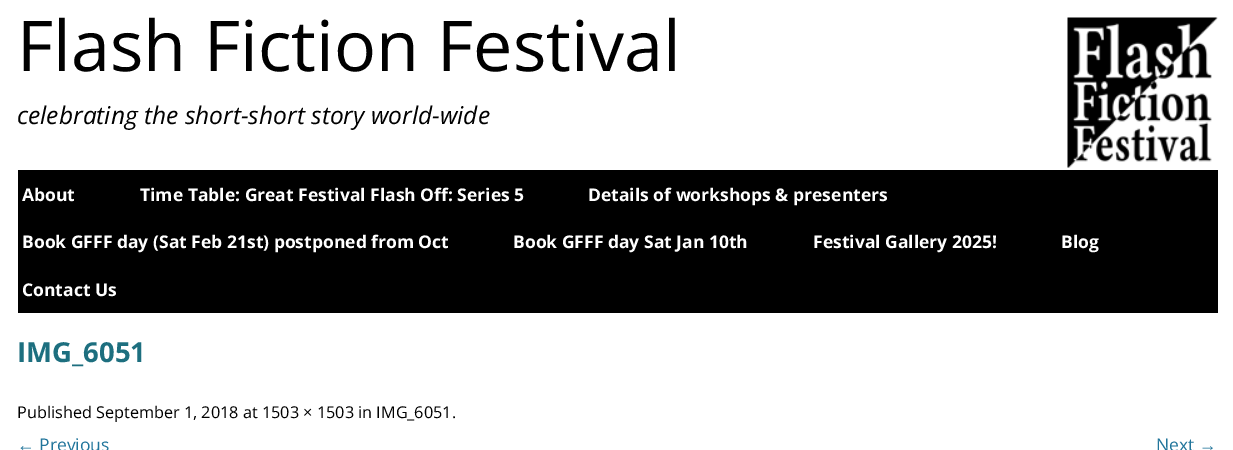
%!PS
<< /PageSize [1233 450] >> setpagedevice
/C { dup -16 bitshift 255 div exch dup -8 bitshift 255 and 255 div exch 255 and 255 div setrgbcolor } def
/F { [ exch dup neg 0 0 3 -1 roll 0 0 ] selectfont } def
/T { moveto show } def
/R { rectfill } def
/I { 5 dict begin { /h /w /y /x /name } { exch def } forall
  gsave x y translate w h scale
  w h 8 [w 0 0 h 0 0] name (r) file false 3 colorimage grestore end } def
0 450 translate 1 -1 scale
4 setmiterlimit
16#FFFFFF C
0 0 1233 450 R
/OpenSans-Regular 70 F
16#000000 C
(Flash Fiction Festival) 17 71 T
/OpenSans-Italic 24.5 F
(celebrating the short-short story world-wide) 17 124 T
(1.rgb) 1067 17 151 151 I
18 170 1200 143 R
/OpenSans-Bold 17.5 F
16#FFFFFF C
(About) 22 201 T
(Time Table: Great Festival Flash Off: Series 5) 140 201 T
(Details of workshops & presenters) 588 201 T
(Book GFFF day \(Sat Feb 21st\) postponed from Oct) 22 248 T
(Book GFFF day Sat Jan 10th) 513 248 T
(Festival Gallery 2025!) 813 248 T
(Blog) 1061 248 T
(Contact Us) 22 296 T
/OpenSans-Bold 27.5 F
16#1D6F7F C
(IMG_6051) 17 362 T
/OpenSans-Regular 16.25 F
16#000000 C
(Published September 1, 2018 at 1503 × 1503 in IMG_6051.) 17 418 T
/LiberationSans-Regular 17.5 F
16#21759B C
(←) 17 451 T
/OpenSans-Regular 17.5 F
(Previous) 39 451 T
(Next) 1156 451 T
/LiberationSans-Regular 17.5 F
(→) 1199 451 T
showpage
